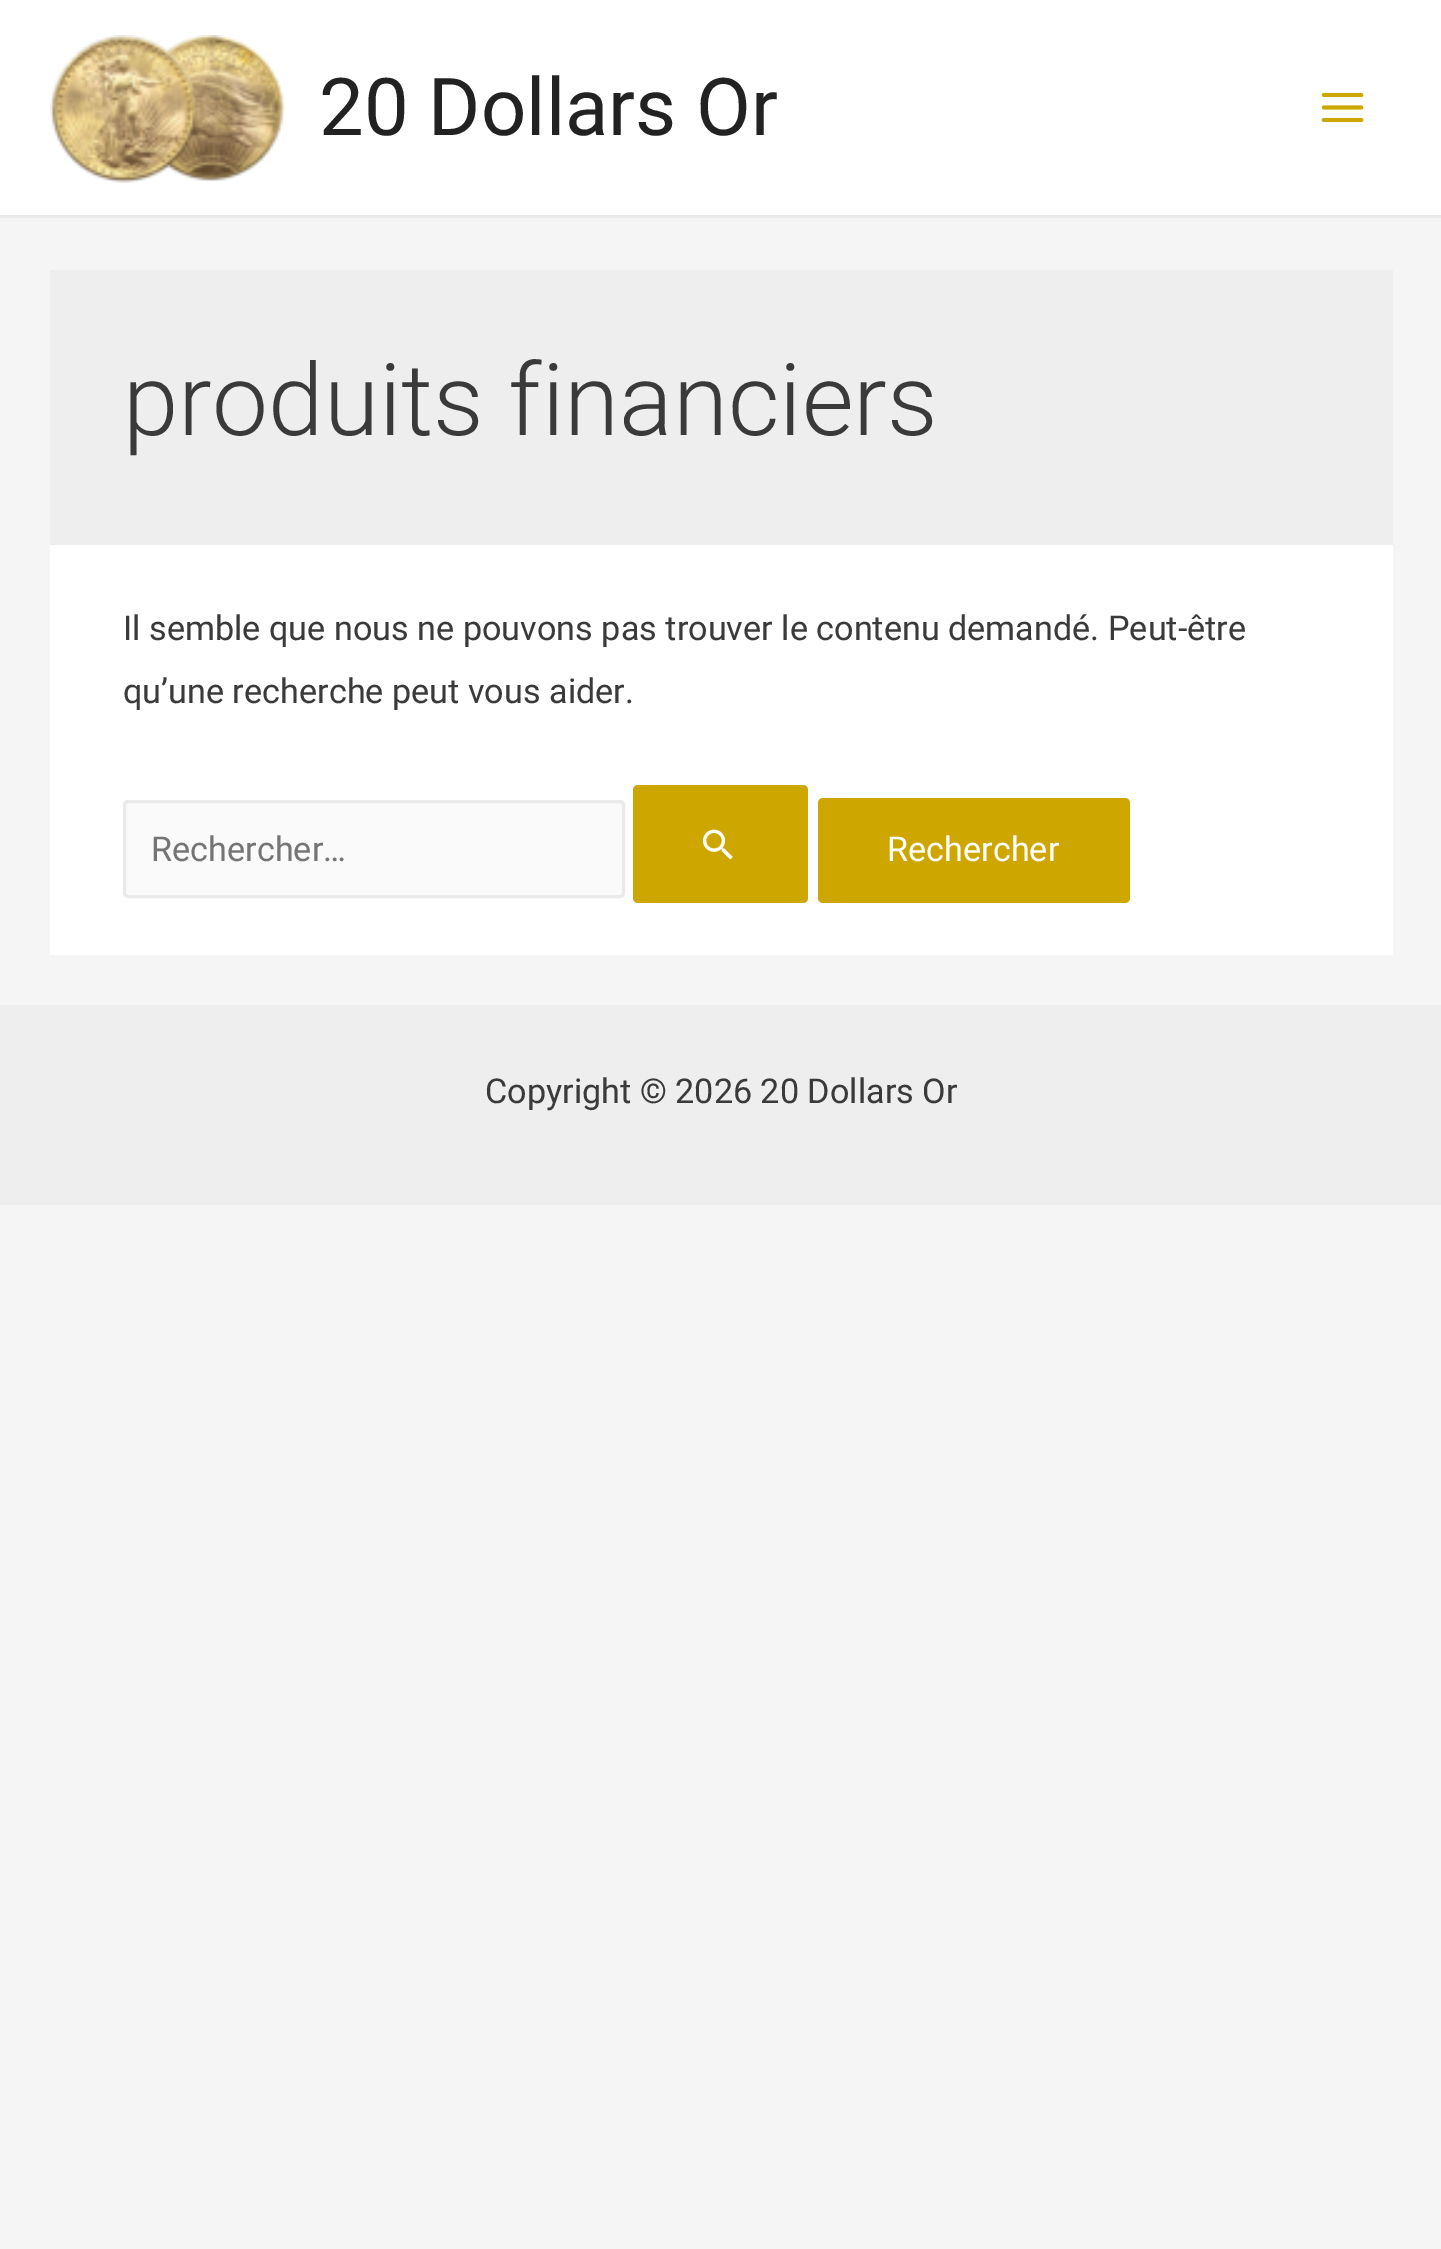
%!PS
<< /PageSize [1441 2249] >> setpagedevice
/f/fill load def
/s/stroke load def
/q/gsave load def
/Q_/grestore load def
/w/setlinewidth load def
/C { dup -16 bitshift 255 div exch dup -8 bitshift 255 and 255 div exch 255 and 255 div setrgbcolor } def
/F { [ exch dup neg 0 0 3 -1 roll 0 0 ] selectfont } def
/T { moveto show } def
/R { rectfill } def
/Q { 5 dict begin { /r /h /w /y /x } { exch def } forall
  x r add y moveto x w add y 2 copy h add r arct x w add y h add x 1 index r arct
  x y h add x y r arct x y 2 copy exch w add exch r arct closepath end } def
/I { 5 dict begin { /h /w /y /x /name } { exch def } forall
  gsave x y translate w h scale
  w h 8 [w 0 0 h 0 0] name (r) file false 3 colorimage grestore end } def
0 2249 translate 1 -1 scale
4 setmiterlimit
16#F5F5F5 C
0 0 1441 2249 R
16#FFFFFF C
0 0 1441 215 R
16#EAEAEA C
0 215 1441 3 R
(1.rgb) 50 35 235 148 I
/Roboto-Regular 79.75 F
16#222222 C
(20 Dollars Or) 319 135 T
(2.rgb) 1321 92 43 31 I
16#EEEEEE C
50 270 1343 275 R
/Roboto-Light 100 F
16#3A3A3A C
(produits financiers) 123 435 T
16#FFFFFF C
50 545 1343 410 R
/Roboto-Regular 34.2 F
16#3A3A3A C
(Il semble que nous ne pouvons pas trouver le contenu demandé. Peut-être) 123 640 T
(qu’une recherche peut vous aider.) 123 703 T
16#FAFAFA C
124.5 801.5 499 95 3.5 Q q f Q_
16#EAEAEA C
3 w
s
16#757575 C
(Rechercher…) 151 861 T
16#CEA600 C
633 785 175 118 5 Q f
(3.rgb) 703 829 30 31 I
818 798 312 105 5 Q f
16#FFFFFF C
(Rechercher) 887 861 T
16#EEEEEE C
0 1005 1441 200 R
16#3A3A3A C
(Copyright © 2026 20 Dollars Or) 485 1103 T
showpage
